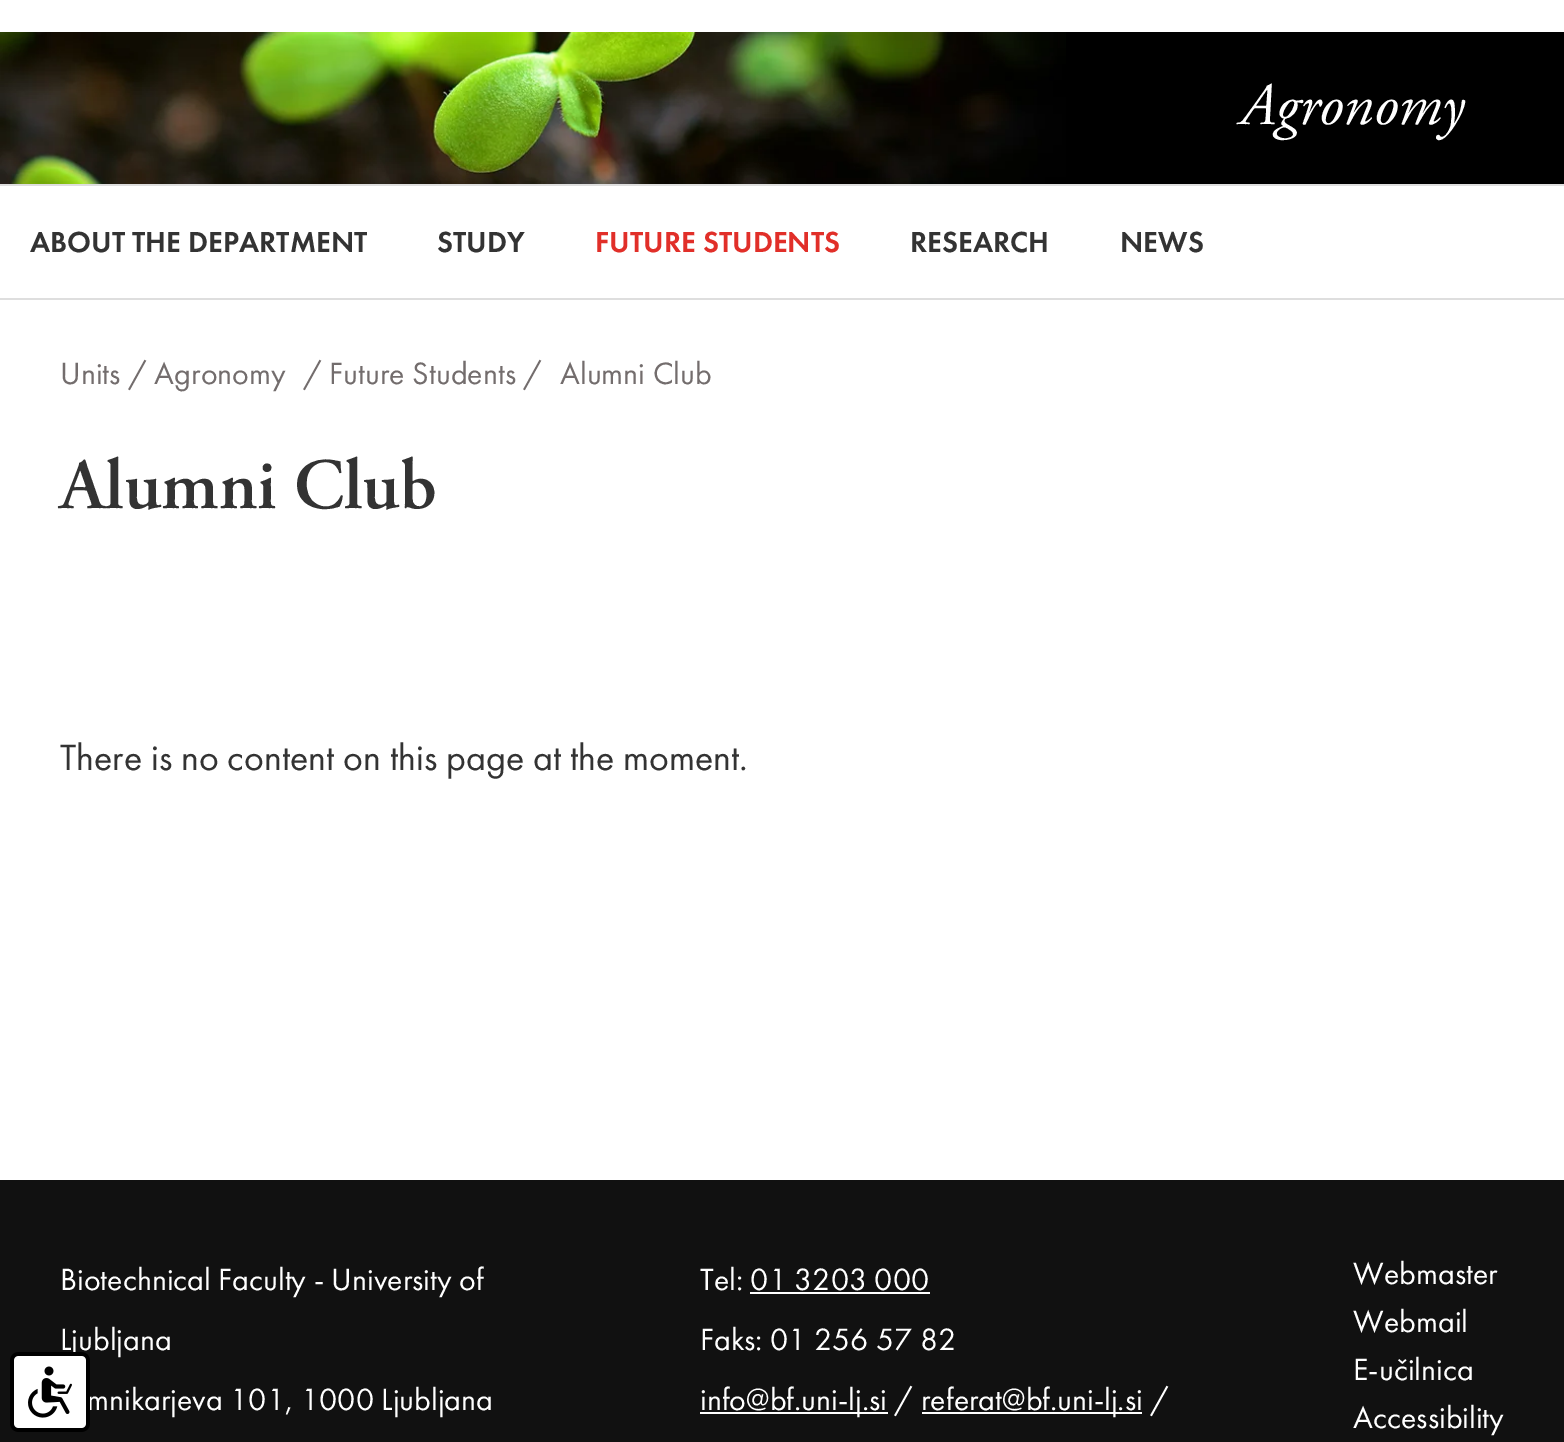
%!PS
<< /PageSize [1564 1442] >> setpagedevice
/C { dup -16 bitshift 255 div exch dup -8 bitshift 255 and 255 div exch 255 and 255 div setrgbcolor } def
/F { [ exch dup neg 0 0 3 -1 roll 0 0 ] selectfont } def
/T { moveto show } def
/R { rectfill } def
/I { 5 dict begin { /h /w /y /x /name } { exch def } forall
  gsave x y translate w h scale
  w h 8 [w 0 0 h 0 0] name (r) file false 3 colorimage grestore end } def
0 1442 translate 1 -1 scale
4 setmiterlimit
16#FFFFFF C
0 0 1564 1442 R
16#000000 C
1066 32 498 152 R
(1.rgb) 0 32 1066 152 I
/AdobeGaramond-Italic 60 F
16#FFFFFF C
(Agronomy) 1240 124 T
16#DEDEDE C
0 184 1564 2 R
0 298 1564 2 R
/FuturaPT-Medium 30 F
16#333333 C
(ABOUT THE DEPARTMENT) 30 252 T
(STUDY) 437 252 T
16#E12F29 C
(FUTURE STUDENTS) 595 252 T
16#333333 C
(RESEARCH) 910 252 T
(NEWS) 1120 252 T
/FuturaPT-Regular 32 F
16#736D6D C
(Units / Agronomy) 60 384 T
(/ Future Students /) 303 384 T
(Alumni Club) 560 384 T
/AdobeGaramond-SemiBold 72 F
16#333333 C
(Alumni Club) 60 508 T
/FuturaPT-Regular 38 F
(There is no content on this page at the moment.) 60 770 T
16#111111 C
0 1180 1564 262 R
/FuturaPT-Regular 32 F
16#FFFFFF C
(Ljubljana) 60 1350 T
(mnikarjeva 101, 1000 Ljubljana) 87 1410 T
(2.rgb) 10 1352 80 80 I
(Biotechnical Faculty - University of) 60 1290 T
(Tel: 01 3203 000) 700 1290 T
750 1292 180 2 R
(Faks: 01 256 57 82) 700 1350 T
700 1412 188 2 R
(info@bf.uni-lj.si /) 700 1410 T
922 1412 220 2 R
(referat@bf.uni-lj.si /) 921 1410 T
(Webmaster) 1353 1284 T
(Webmail) 1353 1332 T
(E-učilnica) 1353 1380 T
(Accessibility) 1353 1428 T
showpage
